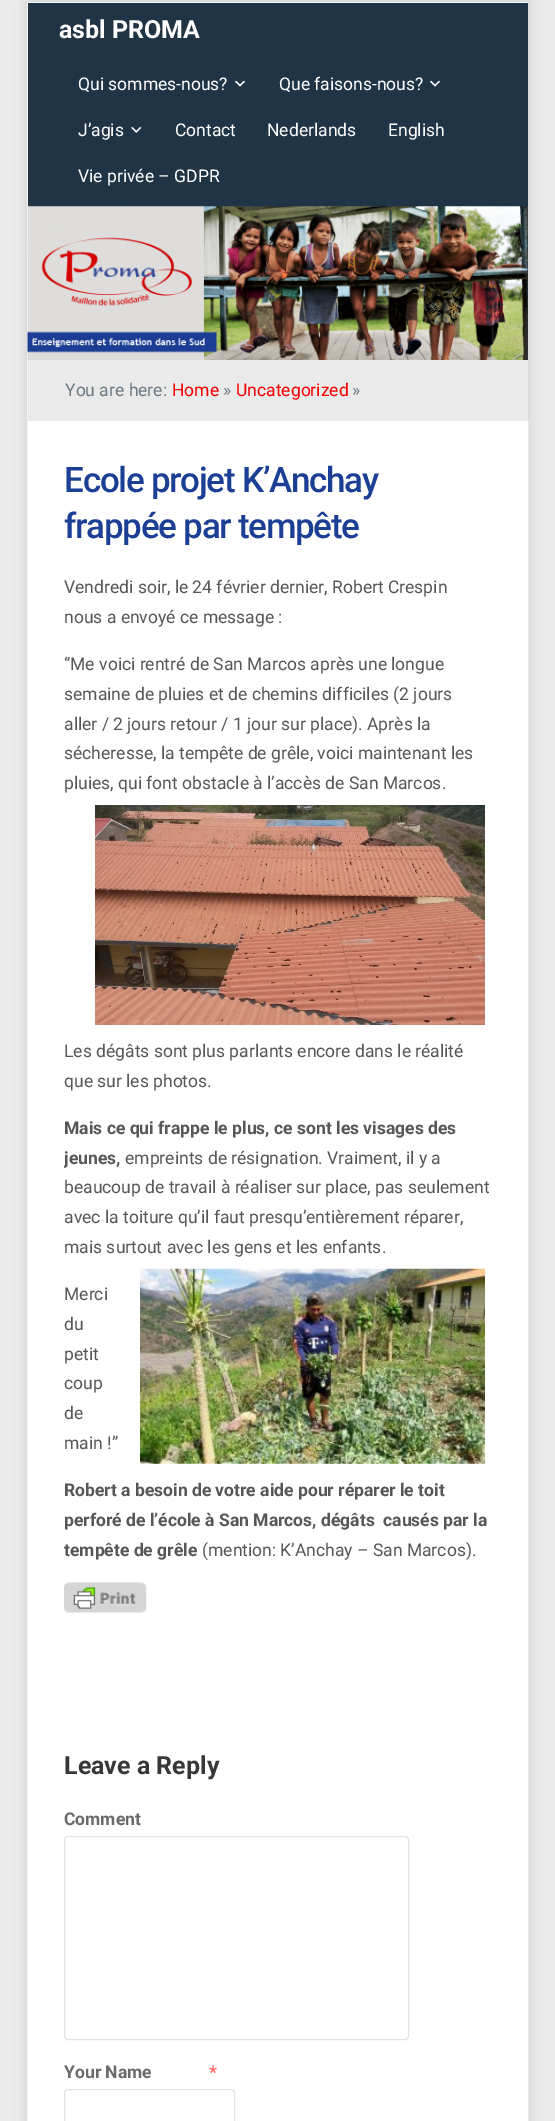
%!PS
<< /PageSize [555 2121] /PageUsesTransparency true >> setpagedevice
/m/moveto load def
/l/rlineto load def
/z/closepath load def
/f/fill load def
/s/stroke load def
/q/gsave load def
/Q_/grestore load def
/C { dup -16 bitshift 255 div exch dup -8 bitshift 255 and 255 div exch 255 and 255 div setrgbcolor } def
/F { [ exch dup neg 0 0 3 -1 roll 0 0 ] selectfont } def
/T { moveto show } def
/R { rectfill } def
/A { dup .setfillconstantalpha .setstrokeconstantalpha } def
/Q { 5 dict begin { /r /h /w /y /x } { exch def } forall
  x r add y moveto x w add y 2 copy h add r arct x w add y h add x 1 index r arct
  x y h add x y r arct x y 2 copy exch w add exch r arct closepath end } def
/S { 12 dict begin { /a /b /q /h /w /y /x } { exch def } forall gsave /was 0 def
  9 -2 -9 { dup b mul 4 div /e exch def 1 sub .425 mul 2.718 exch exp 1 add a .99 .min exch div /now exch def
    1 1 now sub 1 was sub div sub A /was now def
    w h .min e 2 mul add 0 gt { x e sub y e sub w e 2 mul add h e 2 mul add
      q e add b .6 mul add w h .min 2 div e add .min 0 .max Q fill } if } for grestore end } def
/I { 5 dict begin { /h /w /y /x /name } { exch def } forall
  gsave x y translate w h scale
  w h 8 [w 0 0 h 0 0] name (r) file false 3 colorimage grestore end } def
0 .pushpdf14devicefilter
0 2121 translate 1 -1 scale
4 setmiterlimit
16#EBEBEB C
0 0 555 2121 R
16#000000 C
26 1 503 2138 0 6 .1 S
16#FFFFFF C
26.5 1.5 m 502 0 l 0 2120 l -502 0 l z q f Q_
16#DADADA C
s
16#213446 C
28 3 500 357 R
/Roboto-Bold 25 F
16#FFFFFF C
(asbl PROMA) 59 38 T
/Roboto-Regular 17.5 F
(Qui sommes-nous?) 78 90 T
(1.rgb) 234 80 12 7 I
(Que faisons-nous?) 279 90 T
(1.rgb) 429 80 12 7 I
(J’agis) 78 136 T
(2.rgb) 131 127 11 6 I
(Contact) 175 136 T
(Nederlands) 267 136 T
(English) 388 136 T
(Vie privée – GDPR) 78 182 T
(3.rgb) 27 206 501 154 I
16#EAEAEA C
28 360 500 61 R
16#6D7A81 C
(You are here:) 65 396 T
16#F50000 C
(Home) 172 396 T
16#6D7A81 C
(») 223 396 T
16#F50000 C
(Uncategorized) 236 396 T
16#6D7A81 C
(») 352 396 T
16#EBEBEB C
528 421 1 1700 R
/Roboto-Medium 35 F
16#1B3F95 C
64 492 m -1.25 0 (Ecole projet K’Anchay) ashow
64 538 m -1.25 0 (frappée par tempête) ashow
/Roboto-Regular 17.5 F
16#555758 C
(Vendredi soir, le 24 février dernier, Robert Crespin) 64 593 T
(nous a envoyé ce message :) 64 623 T
(“Me voici rentré de San Marcos après une longue) 64 670 T
(semaine de pluies et de chemins difficiles \(2 jours) 64 700 T
(aller / 2 jours retour / 1 jour sur place\). Après la) 64 730 T
(sécheresse, la tempête de grêle, voici maintenant les) 64 759 T
(pluies, qui font obstacle à l’accès de San Marcos.) 64 789 T
(4.rgb) 95 805 390 220 I
(Les dégâts sont plus parlants encore dans le réalité) 64 1057 T
(que sur les photos.) 64 1087 T
/Roboto-Bold 17.5 F
(Mais ce qui frappe le plus, ce sont les visages des) 64 1134 T
q
64 573 426 1052 rectclip
(jeunes,) 64 1164 T
Q_
/Roboto-Regular 17.5 F
(empreints de résignation. Vraiment, il y a) 125 1164 T
(beaucoup de travail à réaliser sur place, pas seulement) 64 1193 T
(avec la toiture qu’il faut presqu’entièrement réparer,) 64 1223 T
(mais surtout avec les gens et les enfants.) 64 1253 T
(5.rgb) 140 1268 345 196 I
(Merci) 64 1300 T
(du) 64 1330 T
(petit) 64 1360 T
(coup) 64 1389 T
(de) 64 1419 T
(main !”) 64 1449 T
/Roboto-Bold 17.5 F
(Robert a besoin de votre aide pour réparer le toit) 64 1496 T
(perforé de l’école à San Marcos, dégâts  causés par la) 64 1526 T
(tempête de grêle) 64 1556 T
/Roboto-Regular 17.5 F
(\(mention: K’Anchay – San Marcos\).) 202 1556 T
(6.rgb) 64 1582 83 31 I
/Roboto-Bold 25 F
16#373737 C
(Leave a Reply) 64 1774 T
/Roboto-Bold 17.5 F
16#6A6A6A C
(Comment) 64 1825 T
16#E3E3E3 C
64.5 1836.5 344 203 3.5 Q s
16#6A6A6A C
(Your Name) 64 2078 T
16#FF6565 C
(*) 209 2078 T
16#E3E3E3 C
64.5 2089.5 170 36 3.5 Q s
.poppdf14devicefilter showpage
